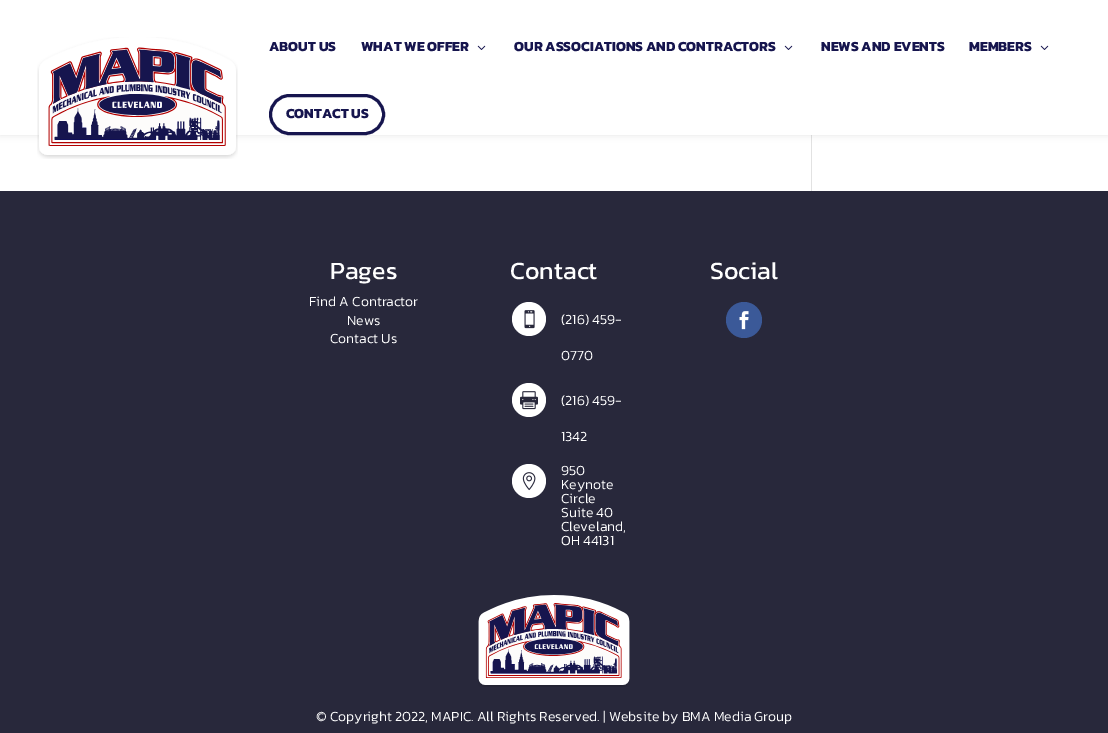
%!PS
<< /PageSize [1108 733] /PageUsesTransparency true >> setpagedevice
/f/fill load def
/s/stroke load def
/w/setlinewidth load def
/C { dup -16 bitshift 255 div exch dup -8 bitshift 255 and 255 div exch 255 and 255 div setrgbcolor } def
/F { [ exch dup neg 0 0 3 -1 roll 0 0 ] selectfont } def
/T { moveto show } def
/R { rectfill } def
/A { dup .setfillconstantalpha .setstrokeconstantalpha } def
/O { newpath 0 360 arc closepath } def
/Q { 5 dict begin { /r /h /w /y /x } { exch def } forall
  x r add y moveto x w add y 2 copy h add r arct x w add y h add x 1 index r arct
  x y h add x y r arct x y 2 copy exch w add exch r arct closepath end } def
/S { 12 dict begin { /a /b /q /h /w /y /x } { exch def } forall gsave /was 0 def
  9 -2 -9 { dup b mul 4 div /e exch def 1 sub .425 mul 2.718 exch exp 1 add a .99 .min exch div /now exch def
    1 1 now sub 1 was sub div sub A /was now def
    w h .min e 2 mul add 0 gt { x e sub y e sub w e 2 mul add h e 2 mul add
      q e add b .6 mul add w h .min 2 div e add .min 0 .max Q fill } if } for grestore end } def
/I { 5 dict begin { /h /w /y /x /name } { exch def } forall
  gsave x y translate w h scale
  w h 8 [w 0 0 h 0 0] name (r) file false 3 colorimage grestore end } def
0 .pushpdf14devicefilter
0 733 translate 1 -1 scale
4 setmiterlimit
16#FFFFFF C
0 0 1108 733 R
16#E2E2E2 C
811 135 1 56 R
16#000000 C
0 0 1108 135 0 3.5 .1 S
16#FFFFFF C
0 0 1108 135 R
(1.rgb) 37 37 201 122 I
/Kanit-Bold 14 F
16#16154E C
(ABOUT US) 269 51 T
(WHAT WE OFFER) 361 51 T
(2.rgb) 477 45 9 5 I
(OUR ASSOCIATIONS AND CONTRACTORS) 514 51 T
(2.rgb) 784 45 9 5 I
(NEWS AND EVENTS) 821 51 T
(MEMBERS) 969 51 T
(2.rgb) 1040 45 9 5 I
3 w
270.5 95.5 113 38 19 Q s
(CONTACT US) 286 118 T
16#28283B C
0 191 1108 542 R
/Kanit-Regular 25 F
16#FFFFFF C
(Pages) 330 279 T
/Kanit-Light 14 F
(Find A Contractor) 309 306 T
(News) 347 325 T
(Contact Us) 330 343 T
/Kanit-Regular 25 F
(Contact) 510 279 T
529 319 17 O f
(3.rgb) 524 310 11 19 I
/Kanit-Light 14 F
(\(216\) 459-) 561 324 T
(0770) 561 360 T
529 400 17 O f
(4.rgb) 520 391 18 19 I
(\(216\) 459-) 561 405 T
(1342) 561 441 T
529 481 17 O f
(5.rgb) 522 472 14 19 I
(950) 561 475 T
(Keynote) 561 489 T
(Circle) 561 503 T
(Suite 40) 561 517 T
(Cleveland,) 561 531 T
(OH 44131) 561 545 T
/Kanit-Regular 25 F
(Social) 710 279 T
16#3B5998 C
744 320 18 O f
(6.rgb) 739 311 10 19 I
(7.rgb) 478 595 152 92 I
/Kanit-Light 14 F
16#FFFFFF C
(© Copyright 2022, MAPIC. All Rights Reserved. | Website by BMA Media Group) 316 721 T
.poppdf14devicefilter showpage
